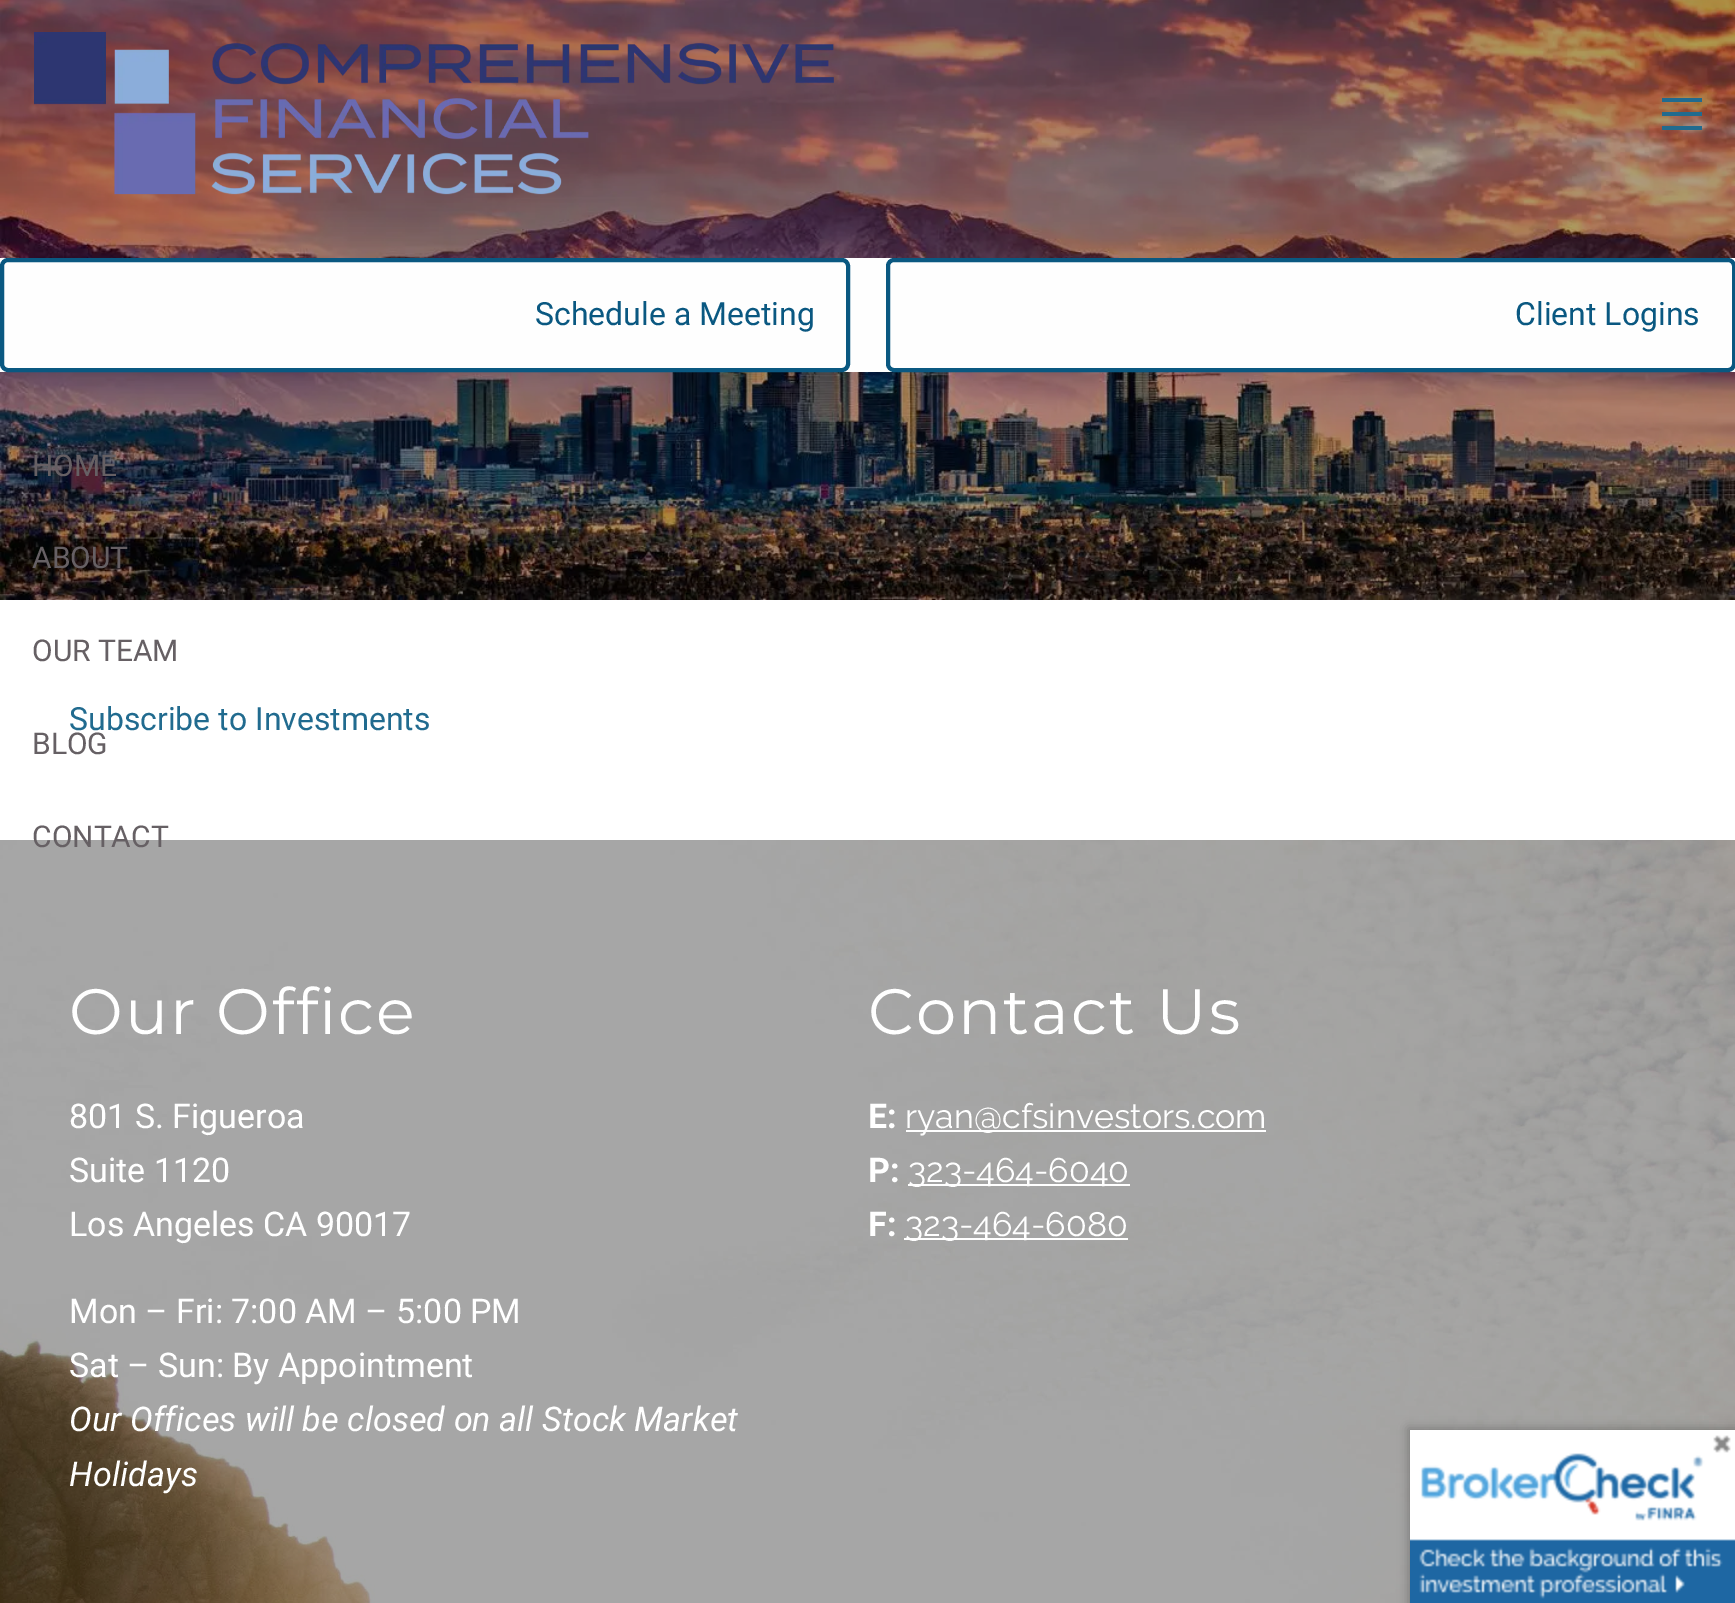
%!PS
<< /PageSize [1735 1603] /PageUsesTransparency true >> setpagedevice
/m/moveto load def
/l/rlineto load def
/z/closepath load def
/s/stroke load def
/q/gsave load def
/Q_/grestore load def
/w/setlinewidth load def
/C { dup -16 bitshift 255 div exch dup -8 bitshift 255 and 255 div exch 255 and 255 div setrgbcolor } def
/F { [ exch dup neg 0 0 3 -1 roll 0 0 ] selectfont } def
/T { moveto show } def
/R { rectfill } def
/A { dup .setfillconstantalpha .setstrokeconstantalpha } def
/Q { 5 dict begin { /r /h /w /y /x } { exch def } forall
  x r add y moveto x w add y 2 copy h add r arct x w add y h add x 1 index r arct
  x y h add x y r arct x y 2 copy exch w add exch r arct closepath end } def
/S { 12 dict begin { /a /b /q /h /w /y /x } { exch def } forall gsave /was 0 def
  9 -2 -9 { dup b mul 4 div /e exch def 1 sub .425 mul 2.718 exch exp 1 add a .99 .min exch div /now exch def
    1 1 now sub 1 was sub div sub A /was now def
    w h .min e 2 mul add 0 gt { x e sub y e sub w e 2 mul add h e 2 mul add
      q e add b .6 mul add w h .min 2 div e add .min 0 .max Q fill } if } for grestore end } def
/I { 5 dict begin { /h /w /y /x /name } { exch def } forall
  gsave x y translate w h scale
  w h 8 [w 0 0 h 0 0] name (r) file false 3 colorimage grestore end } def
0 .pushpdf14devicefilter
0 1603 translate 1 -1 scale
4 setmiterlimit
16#FFFFFF C
0 0 1735 1603 R
(1.rgb) 0 0 1735 600 I
(2.rgb) 34 32 800 163 I
16#216B8F C
1662 126 40 4 R
1662 112 40 4 R
1662 98 40 4 R
16#FEFEFE C
0 258 1735 114 R
16#0A5881 C
4 w
2 260 846 110 6 Q s
/Roboto-Regular 32 F
(Schedule a Meeting) 535 325 T
888 260 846 110 6 Q s
(Client Logins) 1515 325 T
/Roboto-Regular 30 F
16#666064 C
(HOME) 32 476 T
(ABOUT) 32 568 T
(OUR TEAM) 32 661 T
(BLOG) 32 754 T
(3.rgb) 0 840 1735 763 I
(CONTACT) 32 847 T
/Roboto-Regular 32 F
16#216B8F C
(Subscribe to Investments) 69 730 T
/Montserrat-Thin 64 F
16#FFFFFF C
69 1034 m 2 0 (Our Office) ashow
/Roboto-Regular 34 F
(801 S. Figueroa) 69 1128 T
(Suite 1120) 69 1182 T
(Los Angeles CA 90017) 69 1236 T
(Mon – Fri: 7:00 AM – 5:00 PM) 69 1323 T
(Sat – Sun: By Appointment) 69 1377 T
/Roboto-Italic 34 F
(Our Offices will be closed on all Stock Market) 69 1431 T
(Holidays) 69 1486 T
/Montserrat-Thin 64 F
868 1034 m 2 0 (Contact Us) ashow
/Roboto-Bold 34 F
(E:) 868 1128 T
906 1130 360 2 R
/Raleway-Thin 34 F
(ryan@cfsinvestors.com) 905 1128 T
/Roboto-Bold 34 F
(P:) 868 1182 T
908 1184 222 2 R
/Raleway-Thin 34 F
(323-464-6040) 908 1182 T
/Roboto-Bold 34 F
(F:) 868 1236 T
904 1238 224 2 R
/Raleway-Thin 34 F
(323-464-6080) 905 1236 T
1410 1430 325 111 R
q
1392 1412 m 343 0 l 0 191 l -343 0 l z 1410 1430 m 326 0 l 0 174 l -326 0 l z eoclip newpath
16#000000 C
1408 1428 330 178 0 5 .25 S
Q_
(4.rgb) 1410 1435 325 168 I
.poppdf14devicefilter showpage
